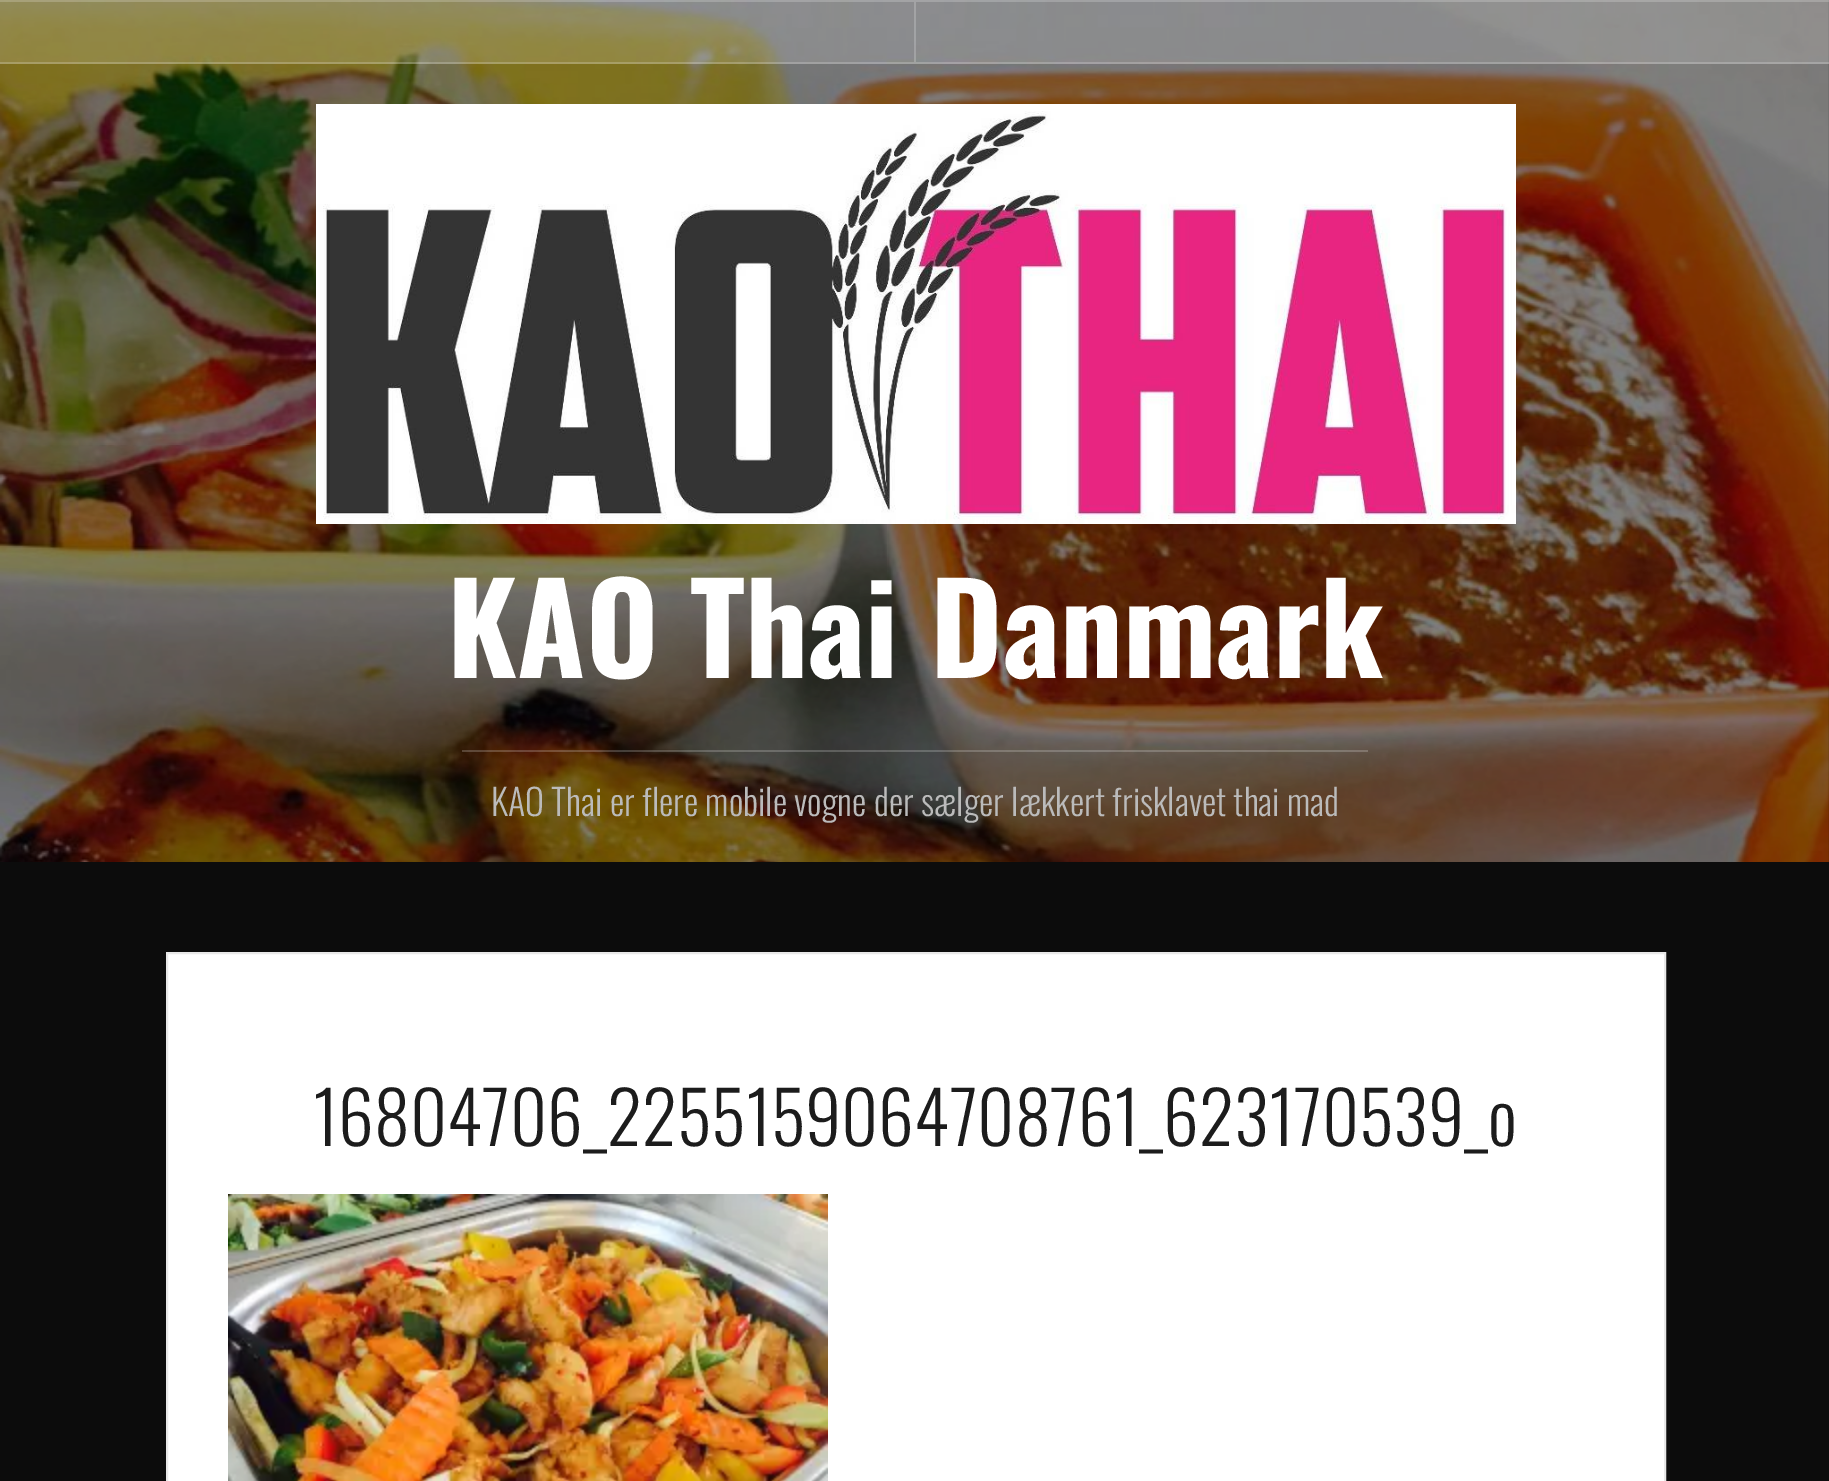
%!PS
<< /PageSize [1829 1481] /PageUsesTransparency true >> setpagedevice
/m/moveto load def
/l/rlineto load def
/z/closepath load def
/f/fill load def
/s/stroke load def
/q/gsave load def
/Q_/grestore load def
/w/setlinewidth load def
/C { dup -16 bitshift 255 div exch dup -8 bitshift 255 and 255 div exch 255 and 255 div setrgbcolor } def
/F { [ exch dup neg 0 0 3 -1 roll 0 0 ] selectfont } def
/T { moveto show } def
/R { rectfill } def
/A { dup .setfillconstantalpha .setstrokeconstantalpha } def
/I { 5 dict begin { /h /w /y /x /name } { exch def } forall
  gsave x y translate w h scale
  w h 8 [w 0 0 h 0 0] name (r) file false 3 colorimage grestore end } def
0 .pushpdf14devicefilter
0 1481 translate 1 -1 scale
4 setmiterlimit
16#0C0C0C C
0 0 1829 1481 R
(1.rgb) 0 0 1829 862 I
0.15 A
16#FFFFFF C
0 0 1829 64 R
0.2 A
0 0 1829 2 R
0 62 1829 2 R
914 2 2 60 R
1 A
(2.rgb) 316 104 1200 420 I
/Oswald-Bold 124 F
(KAO Thai Danmark) 447 678 T
0.2 A
462 750 906 2 R
/Oswald-Light 36 F
1 A
16#BBBBBB C
(KAO Thai er flere mobile vogne der sælger lækkert frisklavet thai mad) 491 816 T
16#FFFFFF C
167 953 m 1498 0 l 0 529 l -1498 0 l z q f Q_
16#E8E8E8 C
2 w
s
/Oswald-Light 72 F
16#1C1C1C C
(16804706_2255159064708761_623170539_o) 313 1146 T
(3.rgb) 228 1194 600 287 I
.poppdf14devicefilter showpage
